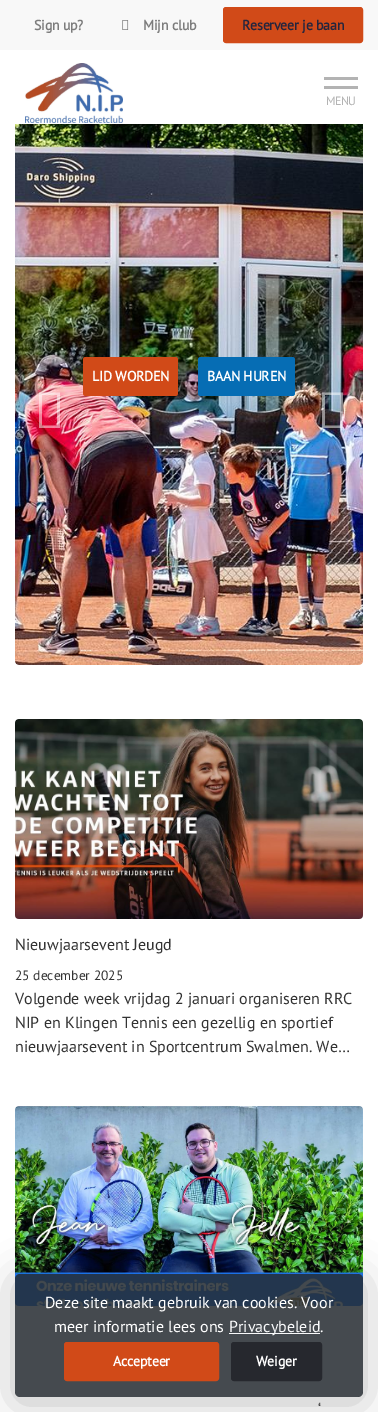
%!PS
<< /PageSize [378 1412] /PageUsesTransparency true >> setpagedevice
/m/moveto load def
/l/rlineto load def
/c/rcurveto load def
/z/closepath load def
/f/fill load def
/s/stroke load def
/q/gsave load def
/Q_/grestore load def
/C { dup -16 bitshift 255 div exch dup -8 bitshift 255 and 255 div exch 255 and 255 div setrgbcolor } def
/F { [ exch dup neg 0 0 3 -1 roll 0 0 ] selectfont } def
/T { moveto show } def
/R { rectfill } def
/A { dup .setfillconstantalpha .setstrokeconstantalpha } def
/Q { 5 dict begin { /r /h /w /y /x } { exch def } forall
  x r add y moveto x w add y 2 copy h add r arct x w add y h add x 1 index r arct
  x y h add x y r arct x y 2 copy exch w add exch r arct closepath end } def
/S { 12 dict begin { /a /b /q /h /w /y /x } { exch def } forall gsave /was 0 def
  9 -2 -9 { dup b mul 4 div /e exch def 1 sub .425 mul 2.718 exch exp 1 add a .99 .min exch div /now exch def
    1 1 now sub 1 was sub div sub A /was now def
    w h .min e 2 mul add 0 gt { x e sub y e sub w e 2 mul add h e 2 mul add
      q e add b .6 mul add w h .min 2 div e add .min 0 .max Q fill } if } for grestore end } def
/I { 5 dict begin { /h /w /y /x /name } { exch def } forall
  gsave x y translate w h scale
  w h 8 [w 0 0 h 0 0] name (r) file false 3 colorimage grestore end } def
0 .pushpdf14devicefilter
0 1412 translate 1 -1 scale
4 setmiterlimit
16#FFFFFF C
0 0 378 1412 R
16#F8F8F8 C
0 0 378 50 R
/PTSans-Bold 14 F
16#7C7C7C C
34 30 m -.25 0 (Sign up?) ashow
(1.rgb) 122 20 7 10 I
143 30 m -.25 0 (Mijn club) ashow
16#D14A18 C
223.5 7.5 139 35 2.5 Q q f Q_
s
16#24253D C
242 30 m -.25 0 (Reserveer je baan) ashow
(2.rgb) 25 63 98 60 I
16#B3B3B3 C
324 77 34 3 R
324 86 34 3 R
/PTSans-Regular 12 F
326 105 m -.5 0 (MENU) ashow
(3.rgb) 15 124 348 541 I
16#D14A18 C
86 357 m 89 0 l 2 0 3 1 3 3 c 0 33 l 0 2 -1 3 -3 3 c -89 0 l -2 0 -3 -1 -3 -3 c 0 -33 l 0 -2 1 -3 3 -3 c z f
/PTSans-Bold 14 F
16#FFFFFF C
92 381 m -.25 0 (LID WORDEN) ashow
16#066DB4 C
201 357 m 91 0 l 2 0 3 1 3 3 c 0 33 l 0 2 -1 3 -3 3 c -91 0 l -2 0 -3 -1 -3 -3 c 0 -33 l 0 -2 1 -3 3 -3 c z f
16#FFFFFF C
207 381 m -.25 0 (BAAN HUREN) ashow
0.5 A
39 428 m 0 -35.5 l 21 0 l 0 35.5 l z 42 425.5 m 15 0 l 0 -30.5 l -15 0 l z f
322 428 m 0 -35.5 l 21 0 l 0 35.5 l z 325 425.5 m 15 0 l 0 -30.5 l -15 0 l z f
1 A
(4.rgb) 15 719 348 200 I
/PTSans-Regular 16 F
16#333333 C
(Nieuwjaarsevent Jeugd) 15 950 T
/PTSans-Regular 13.5 F
(25 december 2025) 15 980 T
/PTSans-Regular 16 F
(Volgende week vrijdag 2 januari organiseren RRC) 15 1004 T
(NIP en Klingen Tennis een gezellig en sportief) 15 1028 T
(nieuwjaarsevent in Sportcentrum Swalmen. We…) 15 1052 T
(5.rgb) 15 1106 348 200 I
(‘) 318 1415 T
q
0 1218 m 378 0 l 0 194 l -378 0 l z 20 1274 m 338 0 l 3 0 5 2 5 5 c 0 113 l 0 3 -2 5 -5 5 c -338 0 l -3 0 -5 -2 -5 -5 c 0 -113 l 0 -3 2 -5 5 -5 c z eoclip newpath
16#000000 C
15 1279 348 123 5 20 .25 S
Q_
0.85 A
16#242A30 C
15 1274 348 123 5 Q f
1 A
16#FFFFFF C
(Deze site maakt gebruik van cookies. Voor) 45 1308 T
(meer informatie lees ons) 54 1332 T
16#F8F9FA C
229 1333 91 1 R
(Privacybeleid) 229 1332 T
16#FFFFFF C
(.) 320 1332 T
16#D14A18 C
64.5 1342.5 154 38 2.5 Q q f Q_
s
/PTSans-Bold 14 F
16#FFFFFF C
113 1366 m -.25 0 (Accepteer) ashow
16#26282E C
231.5 1342.5 90 38 2.5 Q q f Q_
s
16#FFFFFF C
256 1366 m -.25 0 (Weiger) ashow
.poppdf14devicefilter showpage
